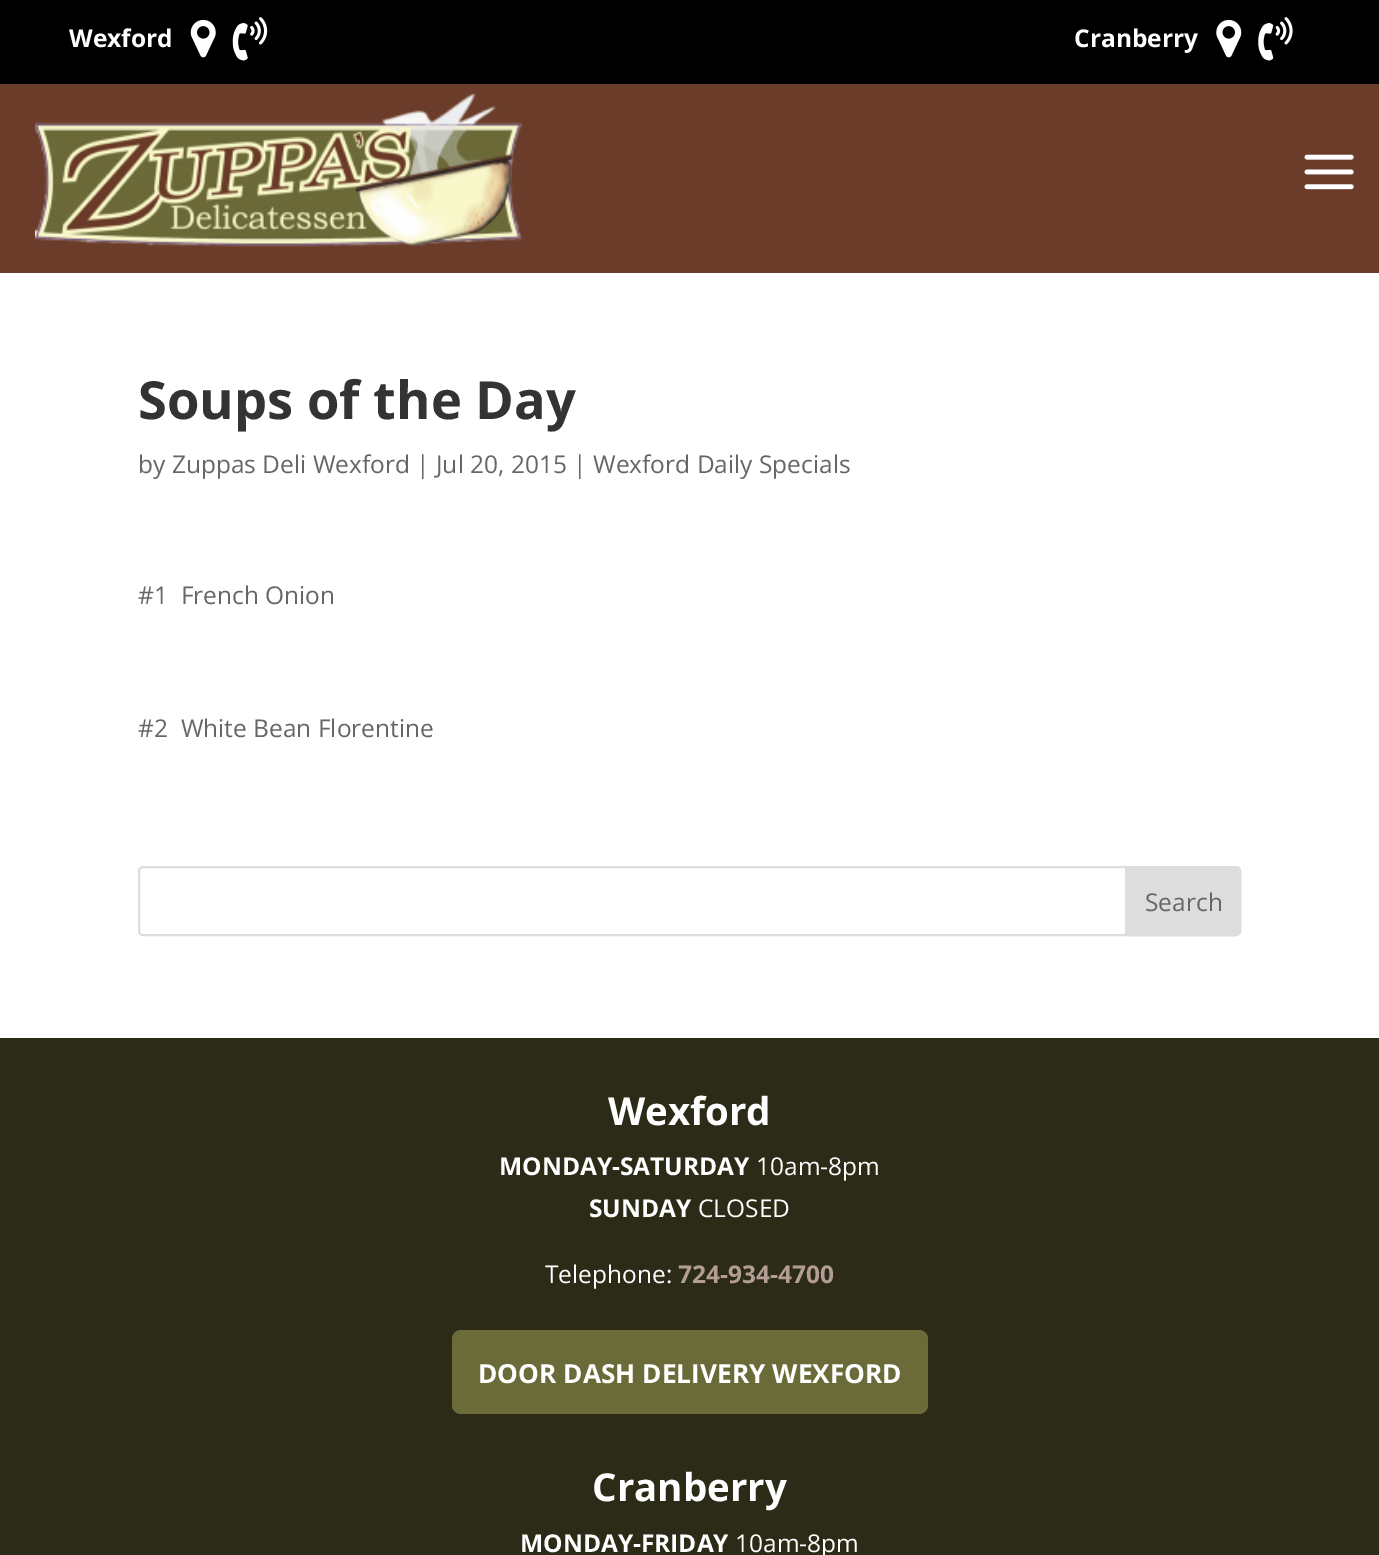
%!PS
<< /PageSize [1379 1555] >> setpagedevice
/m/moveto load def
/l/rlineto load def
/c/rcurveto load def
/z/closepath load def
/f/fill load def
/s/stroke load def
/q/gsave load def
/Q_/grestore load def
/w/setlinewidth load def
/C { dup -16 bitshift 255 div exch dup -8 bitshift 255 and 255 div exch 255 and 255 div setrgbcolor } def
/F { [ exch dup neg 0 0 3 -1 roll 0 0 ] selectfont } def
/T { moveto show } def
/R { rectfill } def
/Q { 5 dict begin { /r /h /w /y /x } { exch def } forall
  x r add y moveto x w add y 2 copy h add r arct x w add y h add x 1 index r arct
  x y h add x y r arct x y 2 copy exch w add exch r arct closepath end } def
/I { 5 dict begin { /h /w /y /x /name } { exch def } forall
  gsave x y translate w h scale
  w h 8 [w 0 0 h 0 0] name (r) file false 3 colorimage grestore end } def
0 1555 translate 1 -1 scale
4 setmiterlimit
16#FFFFFF C
0 0 1379 1555 R
16#000000 C
0 0 1379 84 R
/OpenSans-Bold 24.5 F
16#FFFFFF C
(Wexford) 69 47 T
(1.rgb) 190 19 26 39 I
(2.rgb) 232 17 36 44 I
(Cranberry) 1074 47 T
(3.rgb) 1216 19 26 39 I
(4.rgb) 1258 17 35 44 I
16#6A3C29 C
0 84 1379 189 R
(5.rgb) 35 93 487 154 I
(6.rgb) 1304 154 50 36 I
/OpenSans-Bold 52.5 F
16#333333 C
(Soups of the Day) 138 419 T
/OpenSans-Regular 24.5 F
16#666666 C
(by Zuppas Deli Wexford | Jul 20, 2015 | Wexford Daily Specials) 138 473 T
(#1  French Onion) 138 604 T
(#2  White Bean Florentine) 138 737 T
16#DDDDDD C
2 w
139 867 1101 68 4 Q s
1126 867 m 110 0 l 2 0 4 2 4 4 c 0 60 l 0 2 -2 4 -4 4 c -110 0 l z q f Q_
s
16#666666 C
(Search) 1145 911 T
16#2B2B17 C
0 1038 1379 517 R
/OpenSans-Bold 38.5 F
16#FFFFFF C
(Wexford) 608 1125 T
/OpenSans-Bold 24.5 F
(MONDAY-SATURDAY) 499 1175 T
/OpenSans-Regular 24.5 F
(10am-8pm) 756 1175 T
/OpenSans-Bold 24.5 F
(SUNDAY) 589 1217 T
/OpenSans-Regular 24.5 F
(CLOSED) 698 1217 T
(Telephone:) 545 1283 T
/OpenSans-Bold 24.5 F
16#B49D94 C
(724-934-4700) 678 1283 T
16#6B6B39 C
452 1330 476 84 9 Q f
/OpenSans-Bold 26.25 F
16#FFFFFF C
(DOOR DASH DELIVERY WEXFORD) 478 1383 T
/OpenSans-Bold 38.5 F
(Cranberry) 592 1501 T
/OpenSans-Bold 24.5 F
(MONDAY-FRIDAY) 520 1552 T
/OpenSans-Regular 24.5 F
(10am-8pm) 735 1552 T
showpage
